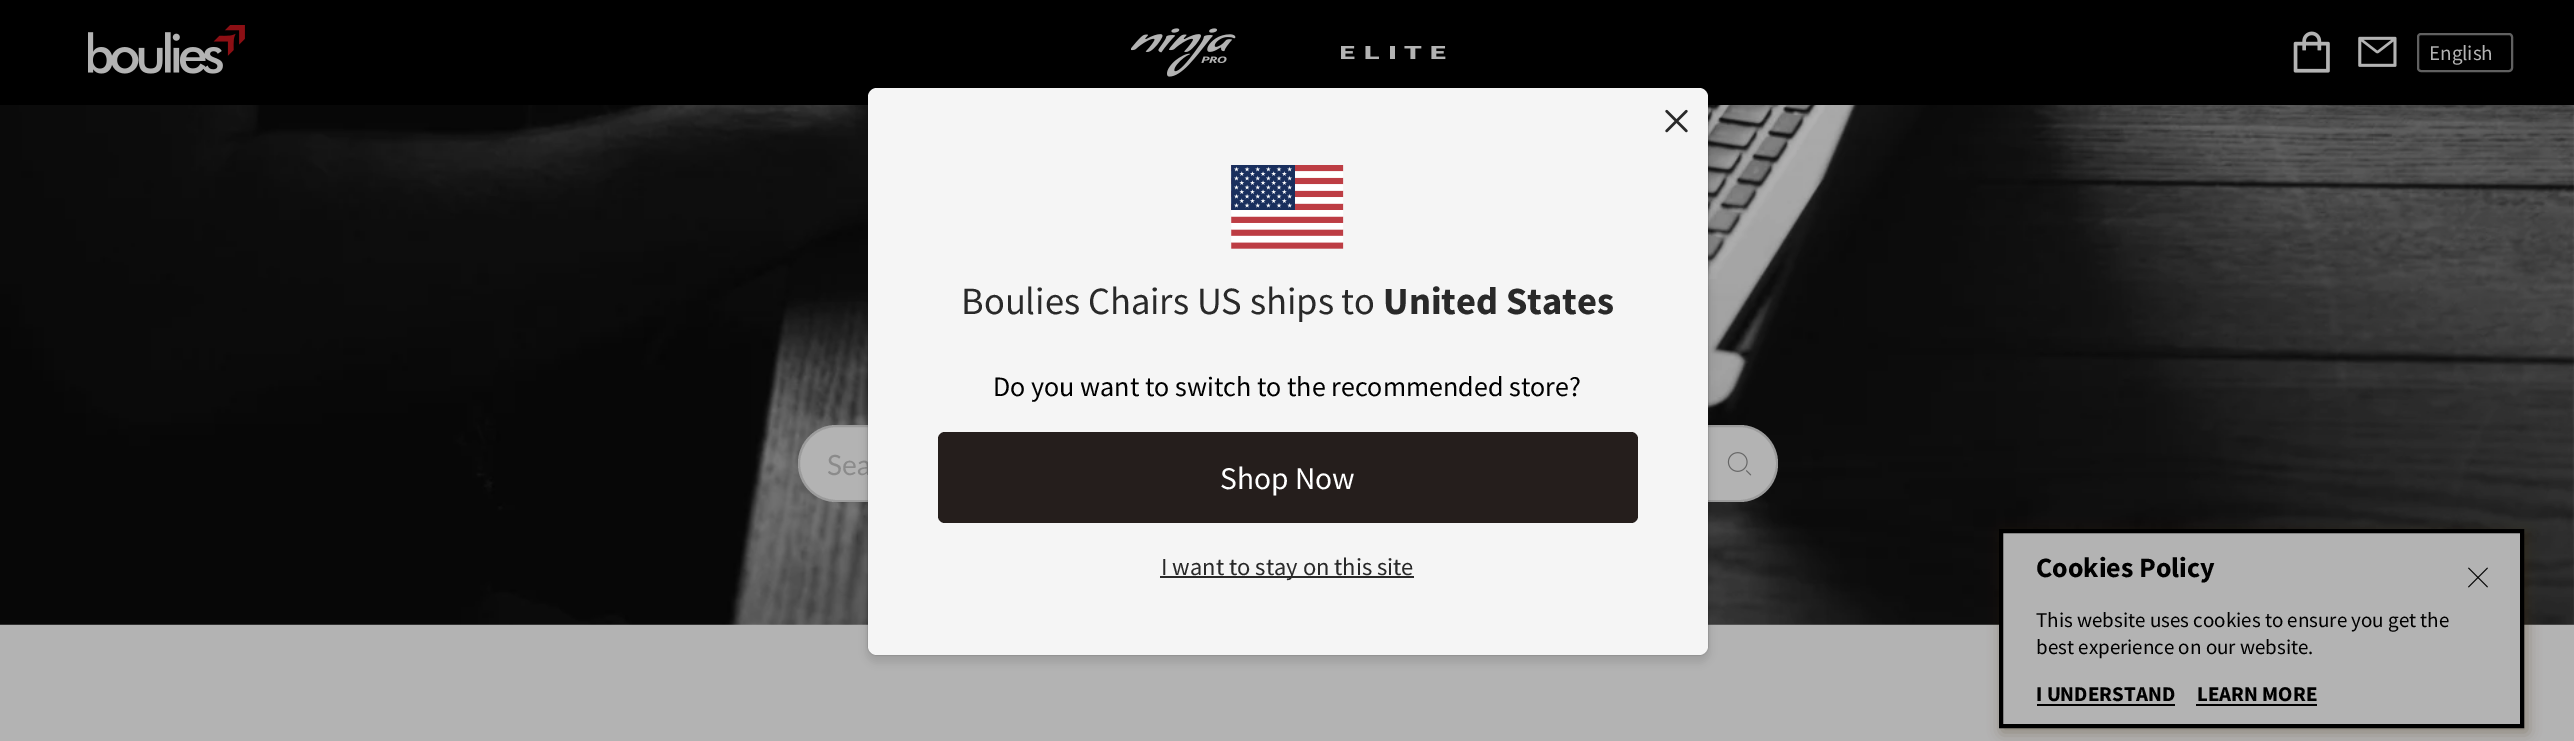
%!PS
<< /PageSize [2574 741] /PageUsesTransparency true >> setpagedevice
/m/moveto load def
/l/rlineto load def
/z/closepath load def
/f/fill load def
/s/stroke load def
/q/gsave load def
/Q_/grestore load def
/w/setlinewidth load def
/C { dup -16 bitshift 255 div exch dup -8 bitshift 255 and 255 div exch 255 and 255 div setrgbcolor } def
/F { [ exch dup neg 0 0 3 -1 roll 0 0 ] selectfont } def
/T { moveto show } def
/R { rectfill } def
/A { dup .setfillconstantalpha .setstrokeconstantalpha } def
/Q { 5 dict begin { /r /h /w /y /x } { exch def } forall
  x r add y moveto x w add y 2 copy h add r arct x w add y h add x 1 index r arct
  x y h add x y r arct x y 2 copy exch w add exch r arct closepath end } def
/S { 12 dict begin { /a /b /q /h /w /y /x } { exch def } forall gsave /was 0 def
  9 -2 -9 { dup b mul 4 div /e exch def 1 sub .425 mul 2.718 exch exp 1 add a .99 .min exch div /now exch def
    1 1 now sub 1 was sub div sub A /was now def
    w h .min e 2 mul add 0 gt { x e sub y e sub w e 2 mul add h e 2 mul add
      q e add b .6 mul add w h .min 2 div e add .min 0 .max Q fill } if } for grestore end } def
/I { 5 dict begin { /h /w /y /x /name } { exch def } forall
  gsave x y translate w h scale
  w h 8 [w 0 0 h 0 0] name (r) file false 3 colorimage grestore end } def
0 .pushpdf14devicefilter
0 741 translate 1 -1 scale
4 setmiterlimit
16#B3B3B3 C
0 0 2574 741 R
16#000000 C
0 0 2574 105 R
(1.rgb) 88 25 157 49 I
(2.rgb) 1131 28 105 49 I
(3.rgb) 1341 46 105 14 I
(4.rgb) 2293 31 37 42 I
(5.rgb) 2358 36 39 31 I
16#606060 C
2 w
2418 34 94 37 3 Q s
/SourceSansPro-Regular 21 F
16#B3B3B3 C
(English) 2429 60 T
(6.rgb) 0 105 2574 520 I
798 425 980 77 38.5 Q f
0.15 A
16#18191B C
799 426 978 75 37.5 Q s
/Lato-Regular 28 F
1 A
16#8B8B8B C
(Sea) 827 475 T
(7.rgb) 1727 452 25 24 I
16#000000 C
866 93 844 570 11 3.5 .1 S
868 88 840 567 9 1 .3 S
16#F5F5F5 C
868 88 840 567 9 Q f
(8.rgb) 1665 109 23 24 I
(9.rgb) 1231 165 113 84 I
/SourceSansPro-Regular 38.5 F
16#292929 C
(Boulies Chairs US ships to) 961 314 T
/SourceSansPro-Bold 38.5 F
(United States) 1383 314 T
/SourceSansPro-Regular 28 F
16#000000 C
(Do you want to switch to the recommended store?) 993 396 T
16#251E1C C
938 432 700 91 7 Q f
/SourceSansPro-Regular 31.5 F
16#FFFFFF C
(Shop Now) 1220 489 T
16#292929 C
1160 576 254 2 R
/SourceSansPro-Regular 24.5 F
(I want to stay on this site) 1161 575 T
16#3E2901 C
2002 532 525 200 0 7 .34 S
16#B3B3B3 C
2001 531 m 521 0 l 0 195 l -521 0 l z q f Q_
16#000000 C
4 w
s
/SourceSansPro-Bold 28 F
(Cookies Policy) 2036 577 T
(10.rgb) 2468 567 20 21 I
/SourceSansPro-Regular 21 F
(This website uses cookies to ensure you get the) 2036 627 T
(best experience on our website.) 2036 654 T
/SourceSansPro-Bold 21 F
(I UNDERSTAND) 2036 701 T
2037 704 138 2 R
(LEARN MORE) 2197 701 T
2196 704 121 2 R
.poppdf14devicefilter showpage
